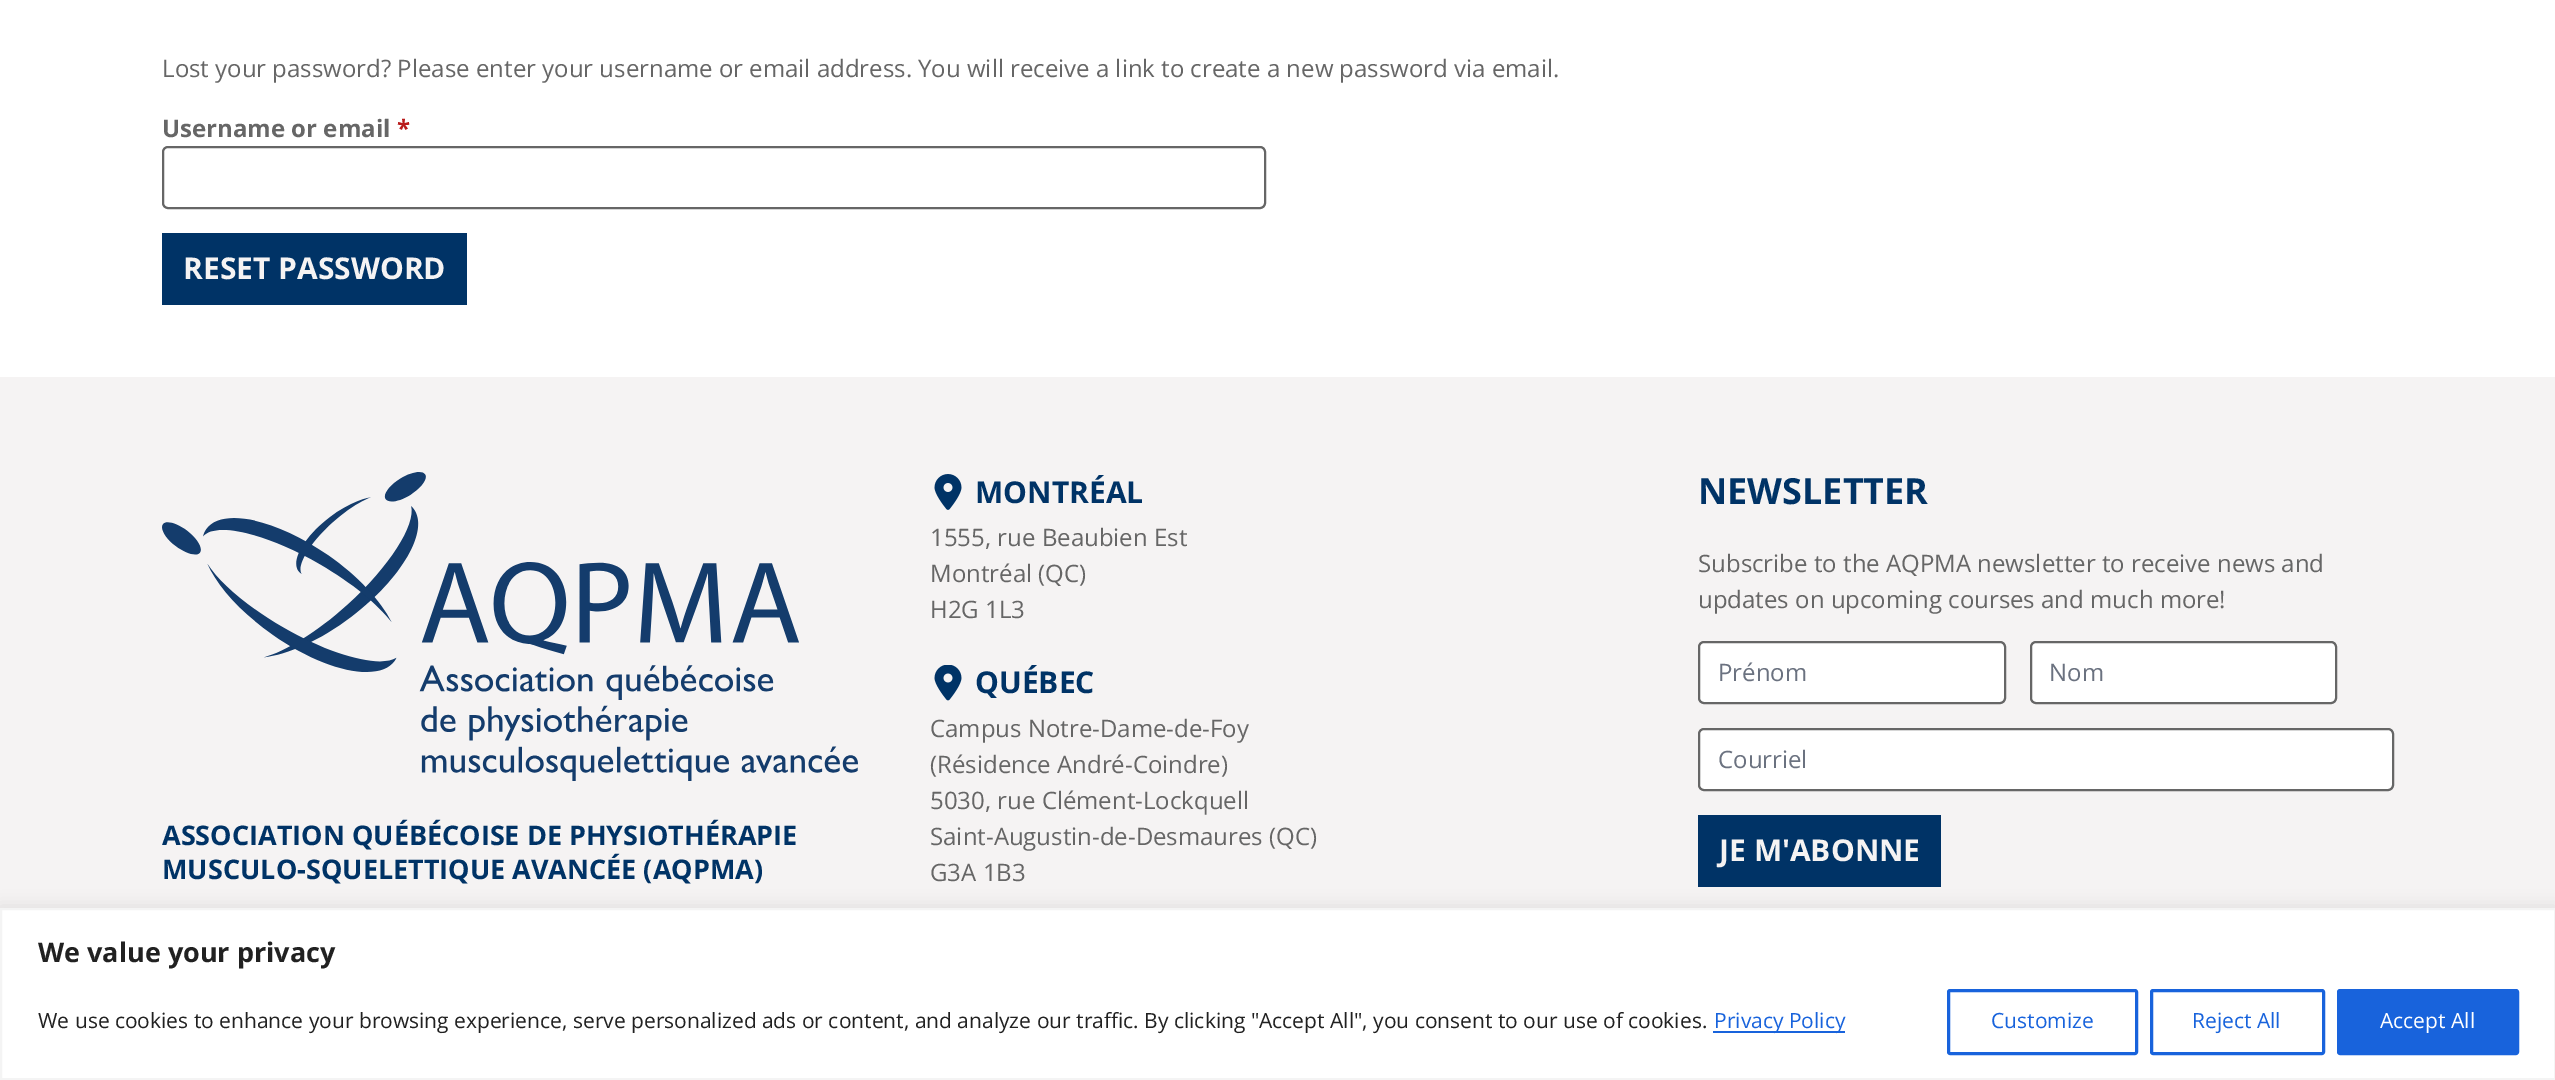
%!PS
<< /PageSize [2555 1080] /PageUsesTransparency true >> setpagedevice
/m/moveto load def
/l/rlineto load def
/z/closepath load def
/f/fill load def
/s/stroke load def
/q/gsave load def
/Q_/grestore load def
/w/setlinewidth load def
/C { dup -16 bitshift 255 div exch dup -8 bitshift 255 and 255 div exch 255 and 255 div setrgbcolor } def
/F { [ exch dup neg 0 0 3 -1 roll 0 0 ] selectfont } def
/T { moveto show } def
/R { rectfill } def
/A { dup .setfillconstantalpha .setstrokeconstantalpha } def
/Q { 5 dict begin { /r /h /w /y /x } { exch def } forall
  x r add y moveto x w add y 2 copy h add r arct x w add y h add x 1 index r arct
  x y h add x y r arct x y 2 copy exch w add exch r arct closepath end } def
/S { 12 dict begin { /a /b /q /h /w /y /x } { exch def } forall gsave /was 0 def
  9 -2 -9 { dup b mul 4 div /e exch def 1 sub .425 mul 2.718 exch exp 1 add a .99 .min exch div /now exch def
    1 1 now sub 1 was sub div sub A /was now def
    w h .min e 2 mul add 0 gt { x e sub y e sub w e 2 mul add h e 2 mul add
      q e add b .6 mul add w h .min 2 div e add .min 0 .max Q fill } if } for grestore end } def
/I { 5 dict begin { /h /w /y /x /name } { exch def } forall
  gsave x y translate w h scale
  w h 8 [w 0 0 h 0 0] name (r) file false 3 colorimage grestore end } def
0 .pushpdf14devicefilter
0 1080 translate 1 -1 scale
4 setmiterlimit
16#FFFFFF C
0 0 2555 1080 R
/OpenSans-Regular 24 F
16#666666 C
(Lost your password? Please enter your username or email address. You will receive a link to create a new password via email.) 162 77 T
/OpenSans-Bold 24 F
(Username or email) 162 137 T
16#B91C1C C
(*) 397 137 T
16#666666 C
2 w
163 147 1102 61 5 Q s
16#003366 C
162 233 305 72 R
/OpenSans-Bold 30 F
16#F5F3F3 C
(RESET PASSWORD) 183 279 T
0 377 2555 531 R
(1.rgb) 162 472 696 309 I
/OpenSans-Bold 27 F
16#003366 C
(ASSOCIATION QUÉBÉCOISE DE PHYSIOTHÉRAPIE) 162 845 T
(MUSCULO-SQUELETTIQUE AVANCÉE \(AQPMA\)) 162 879 T
(2.rgb) 934 474 28 36 I
/OpenSans-Bold 30 F
(MONTRÉAL) 975 503 T
/OpenSans-Regular 24 F
16#666666 C
(1555, rue Beaubien Est) 930 546 T
(Montréal \(QC\)) 930 582 T
(H2G 1L3) 930 618 T
(3.rgb) 934 665 28 36 I
/OpenSans-Bold 30 F
16#003366 C
(QUÉBEC) 975 693 T
/OpenSans-Regular 24 F
16#666666 C
(Campus Notre-Dame-de-Foy) 930 737 T
(\(Résidence André-Coindre\)) 930 773 T
(5030, rue Clément-Lockquell) 930 809 T
(Saint-Augustin-de-Desmaures \(QC\)) 930 845 T
(G3A 1B3) 930 881 T
/OpenSans-Bold 36 F
16#003366 C
(NEWSLETTER) 1698 504 T
/OpenSans-Regular 24 F
16#666666 C
(Subscribe to the AQPMA newsletter to receive news and) 1698 572 T
(updates on upcoming courses and much more!) 1698 608 T
16#FFFFFF C
1699 642 306 61 5 Q q f Q_
16#666666 C
s
16#6B7280 C
(Prénom) 1718 681 T
16#FFFFFF C
2031 642 305 61 5 Q q f Q_
16#666666 C
s
16#6B7280 C
(Nom) 2049 681 T
16#FFFFFF C
1699 729 694 61 5 Q q f Q_
16#666666 C
s
16#6B7280 C
(Courriel) 1718 768 T
16#003366 C
1698 815 243 72 R
/OpenSans-Bold 30 F
16#F5F3F3 C
(JE M'ABONNE) 1719 861 T
16#ACABAB C
0 906 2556 173 0 7.5 .3 S
16#FFFFFF C
1 909 m 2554 0 l 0 170 l -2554 0 l z q f Q_
16#F4F4F4 C
s
/OpenSans-Bold 27 F
16#212121 C
(We value your privacy) 38 962 T
/OpenSans-Regular 21 F
(We use cookies to enhance your browsing experience, serve personalized ads or content, and analyze our traffic. By clicking "Accept All", you consent to our use of cookies.) 38 1028 T
16#1863DC C
1713 1031 132 2 R
(Privacy Policy) 1714 1028 T
3 w
1948.5 990.5 188 63 1.5 Q s
(Customize) 1991 1028 T
2151.5 990.5 172 63 1.5 Q s
(Reject All) 2192 1028 T
2338.5 990.5 179 63 1.5 Q q f Q_
s
16#FFFFFF C
(Accept All) 2380 1028 T
.poppdf14devicefilter showpage
